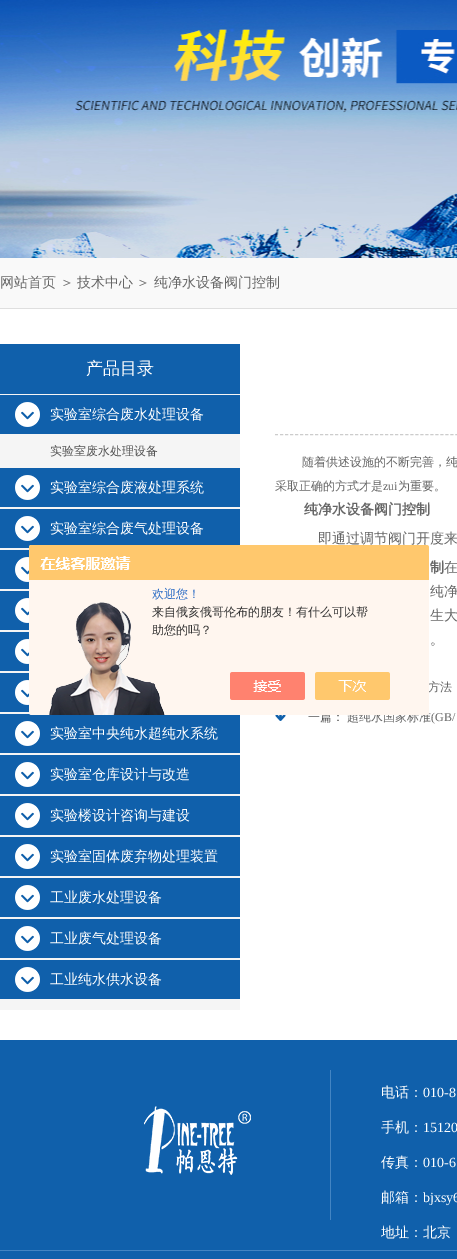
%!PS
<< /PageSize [457 1259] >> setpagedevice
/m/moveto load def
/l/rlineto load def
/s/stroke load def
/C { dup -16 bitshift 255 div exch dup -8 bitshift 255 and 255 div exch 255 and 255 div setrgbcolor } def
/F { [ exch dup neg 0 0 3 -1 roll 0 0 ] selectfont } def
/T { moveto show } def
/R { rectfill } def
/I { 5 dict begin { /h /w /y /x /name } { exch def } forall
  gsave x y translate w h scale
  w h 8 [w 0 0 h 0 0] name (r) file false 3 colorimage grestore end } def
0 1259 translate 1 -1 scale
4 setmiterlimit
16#FFFFFF C
0 0 457 1259 R
(1.rgb) 0 0 457 258 I
16#F9F9F9 C
0 258 457 50 R
16#DFDFDF C
0 308 457 1 R
/WenQuanYiZenHei-Medium 14 F
16#666666 C
(网站首页) 0 287 T
(＞) 60 287 T
(技术中心) 77 287 T
(＞ 纯净水设备阀门控制) 136 287 T
16#F5F5F5 C
0 394 240 616 R
16#1060AB C
0 344 240 50 R
/WenQuanYiZenHei-Medium 17 F
16#FFFFFF C
(产品目录) 86 374 T
16#1060AB C
0 395 240 39 R
(2.rgb) 15 402 25 25 I
/WenQuanYiZenHei-Medium 14 F
16#FFFFFF C
(实验室综合废水处理设备) 50 419 T
/WenQuanYiZenHei-Medium 12 F
16#555555 C
(实验室废水处理设备) 50 455 T
16#1060AB C
0 468 240 39 R
(2.rgb) 15 475 25 25 I
/WenQuanYiZenHei-Medium 14 F
16#FFFFFF C
(实验室综合废液处理系统) 50 492 T
16#1060AB C
0 509 240 39 R
(2.rgb) 15 516 25 25 I
16#FFFFFF C
(实验室综合废气处理设备) 50 533 T
16#1060AB C
0 550 29 39 R
(3.rgb) 15 557 14 25 I
0 591 29 39 R
(3.rgb) 15 598 14 25 I
0 632 29 39 R
(3.rgb) 15 639 14 25 I
0 673 29 39 R
(3.rgb) 15 680 14 25 I
0 714 240 39 R
(2.rgb) 15 721 25 25 I
16#FFFFFF C
(实验室中央纯水超纯水系统) 50 738 T
16#1060AB C
0 755 240 39 R
(2.rgb) 15 762 25 25 I
16#FFFFFF C
(实验室仓库设计与改造) 50 779 T
16#1060AB C
0 796 240 39 R
(2.rgb) 15 803 25 25 I
16#FFFFFF C
(实验楼设计咨询与建设) 50 820 T
16#1060AB C
0 837 240 39 R
(2.rgb) 15 844 25 25 I
16#FFFFFF C
(实验室固体废弃物处理装置) 50 861 T
16#1060AB C
0 878 240 39 R
(2.rgb) 15 885 25 25 I
16#FFFFFF C
(工业废水处理设备) 50 902 T
16#1060AB C
0 919 240 39 R
(2.rgb) 15 926 25 25 I
16#FFFFFF C
(工业废气处理设备) 50 943 T
16#1060AB C
0 960 240 39 R
(2.rgb) 15 967 25 25 I
16#FFFFFF C
(工业纯水供水设备) 50 984 T
16#CCCCCC C
[3 2.01] 0 setdash
275 434.5 m 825 0 l s
/WenQuanYiZenHei-Medium 12 F
16#666666 C
(随着供述设施的不断完善，纯) 302 466 T
(采取正确的方式才是) 275 490 T
/LiberationSerif-Regular 12 F
(zui) 383 490 T
/WenQuanYiZenHei-Medium 12 F
(为重要。) 398 490 T
/WenQuanYiZenHei-Bold 14 F
(纯净水设备阀门控制) 304 514 T
/WenQuanYiZenHei-Medium 14 F
(即通过调节阀门开度来) 318 543 T
/WenQuanYiZenHei-Bold 14 F
(制) 430 572 T
/WenQuanYiZenHei-Medium 14 F
(在) 444 572 T
(纯净) 430 596 T
(生大) 430 620 T
(。) 430 644 T
/WenQuanYiZenHei-Medium 12 F
(方法) 428 691 T
16#1060AB C
275 715 11 6 R
(4.rgb) 275 715 11 6 I
16#555555 C
(一篇：) 308 721 T
16#666666 C
(超纯水国家标准) 347 721 T
/LiberationSerif-Regular 12 F
(\(GB/) 431 721 T
(5.rgb) 29 545 400 170 I
/WenQuanYiZenHei-Medium 12 F
16#2E6EC6 C
(欢迎您！) 152 598 T
16#333333 C
(来自俄亥俄哥伦布的朋友！有什么可以帮) 152 616 T
(助您的吗？) 152 634 T
16#1060AB C
0 1040 457 219 R
16#4385C3 C
330 1070 1 150 R
(6.rgb) 144 1106 107 69 I
/WenQuanYiZenHei-Medium 14 F
16#FFFFFF C
(电话：) 381 1097 T
/LiberationSerif-Regular 14 F
(010-8) 423 1097 T
/WenQuanYiZenHei-Medium 14 F
(手机：) 381 1132 T
/LiberationSerif-Regular 14 F
(15120) 423 1132 T
/WenQuanYiZenHei-Medium 14 F
(传真：) 381 1167 T
/LiberationSerif-Regular 14 F
(010-6) 423 1167 T
/WenQuanYiZenHei-Medium 14 F
(邮箱：) 381 1202 T
/LiberationSerif-Regular 14 F
(bjxsy6) 423 1202 T
/WenQuanYiZenHei-Medium 14 F
(地址：北京) 381 1237 T
16#4385C3 C
0 1250 457 1 R
showpage
